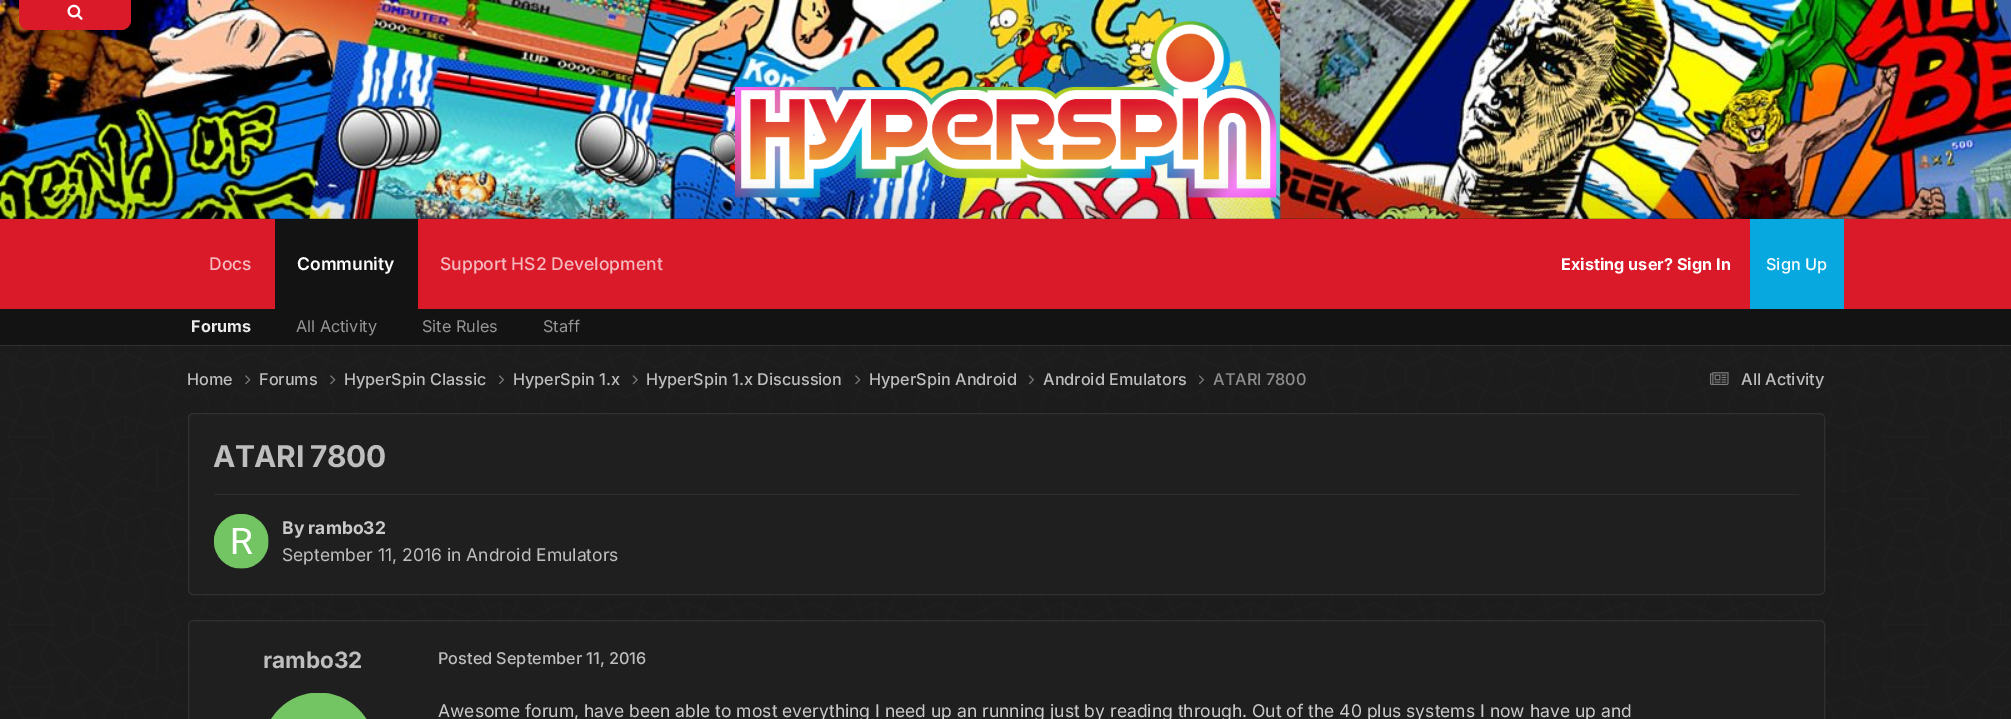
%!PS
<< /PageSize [2011 719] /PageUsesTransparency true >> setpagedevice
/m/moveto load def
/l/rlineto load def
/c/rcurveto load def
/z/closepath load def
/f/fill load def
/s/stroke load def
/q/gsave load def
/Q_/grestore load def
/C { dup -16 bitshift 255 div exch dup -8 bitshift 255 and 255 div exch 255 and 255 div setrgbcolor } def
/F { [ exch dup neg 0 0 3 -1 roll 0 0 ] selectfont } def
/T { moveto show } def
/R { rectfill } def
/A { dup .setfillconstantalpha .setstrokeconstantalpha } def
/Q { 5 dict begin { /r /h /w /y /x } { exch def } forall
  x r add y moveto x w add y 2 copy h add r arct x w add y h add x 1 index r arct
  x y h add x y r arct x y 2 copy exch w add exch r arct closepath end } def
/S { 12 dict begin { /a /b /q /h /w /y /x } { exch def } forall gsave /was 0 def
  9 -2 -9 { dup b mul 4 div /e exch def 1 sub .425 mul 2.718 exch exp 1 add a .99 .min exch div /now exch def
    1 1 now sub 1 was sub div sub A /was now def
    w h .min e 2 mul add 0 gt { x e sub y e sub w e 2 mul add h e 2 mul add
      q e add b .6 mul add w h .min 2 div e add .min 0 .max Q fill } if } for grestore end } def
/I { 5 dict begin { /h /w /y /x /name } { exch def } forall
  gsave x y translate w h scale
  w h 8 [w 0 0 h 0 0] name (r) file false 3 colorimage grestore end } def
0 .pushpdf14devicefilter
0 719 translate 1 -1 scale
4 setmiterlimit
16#FFFFFF C
0 0 2011 719 R
(1.rgb) 0 218 2011 501 I
(2.rgb) 0 0 2011 219 I
16#DB1A29 C
19 0 m 112 0 l 0 20 l 0 5.5 -4.5 10 -10 10 c -92 0 l -5.5 0 -10 -4.5 -10 -10 c z f
(3.rgb) 67 4 16 16 I
(4.rgb) 735 21 542 177 I
16#000000 C
-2 193 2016 132 0 12 .1 S
16#131313 C
0 309 2011 36 R
16#DB1A29 C
0 219 2011 90 R
16#303030 C
0 345 2011 1 R
16#131313 C
275 219 143 90 R
/Inter-SemiBold 17.5 F
16#FFFFFF C
(Community) 297 270 T
/Inter-Bold 16.25 F
16#EBEBEB C
(Forums) 191 332 T
/Inter-Regular 16.25 F
16#959595 C
(All Activity) 296 332 T
(Site Rules) 422 332 T
(Staff) 543 332 T
/Inter-Medium 17.5 F
16#F4BABF C
(Docs) 209 270 T
(Support HS2 Development) 440 270 T
/Inter-Bold 16.25 F
16#FFFFFF C
(Existing user? Sign In) 1561 270 T
16#06A8DF C
1750 219 94 90 R
/Inter-Medium 16.25 F
16#FFFFFF C
(Sign Up) 1766 270 T
16#BEBEBE C
(Home) 187 385 T
(5.rgb) 245 375 6 10 I
(Forums) 259 385 T
(5.rgb) 330 375 6 10 I
(HyperSpin Classic) 344 385 T
(6.rgb) 499 375 6 10 I
(HyperSpin 1.x) 513 385 T
(7.rgb) 632 375 6 10 I
(HyperSpin 1.x Discussion) 646 385 T
(5.rgb) 855 375 6 10 I
(HyperSpin Android) 869 385 T
(8.rgb) 1029 375 6 10 I
(Android Emulators) 1043 385 T
(9.rgb) 1199 375 6 10 I
16#8D8D8D C
(ATARI 7800) 1213 385 T
(10.rgb) 1710 372 19 13 I
16#BEBEBE C
(All Activity) 1741 385 T
16#1F1F1F C
188.5 413.5 1636 181 4.5 Q q f Q_
16#303030 C
s
/Inter-Bold 30 F
16#BEBEBE C
213 467 m -.5 0 (ATARI 7800) ashow
16#2D2D2D C
214 494 1585 1 R
(11.rgb) 214 514 55 55 I
/Inter-Bold 17.5 F
16#CACACA C
(By rambo32) 282 534 T
/Inter-Regular 17.5 F
16#BEBEBE C
(September 11, 2016 in Android Emulators) 282 561 T
16#1F1F1F C
188.5 620.5 1636 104 4.5 Q q f Q_
16#303030 C
s
/Inter-Bold 22.5 F
16#BEBEBE C
(rambo32) 263 668 T
(12.rgb) 271 693 96 26 I
/Inter-Medium 16.25 F
(Posted September 11, 2016) 438 664 T
/Inter-Regular 17.5 F
16#CACACA C
(Awesome forum, have been able to most everything I need up an running just by reading through. Out of the 40 plus systems I now have up and) 438 717 T
.poppdf14devicefilter showpage
